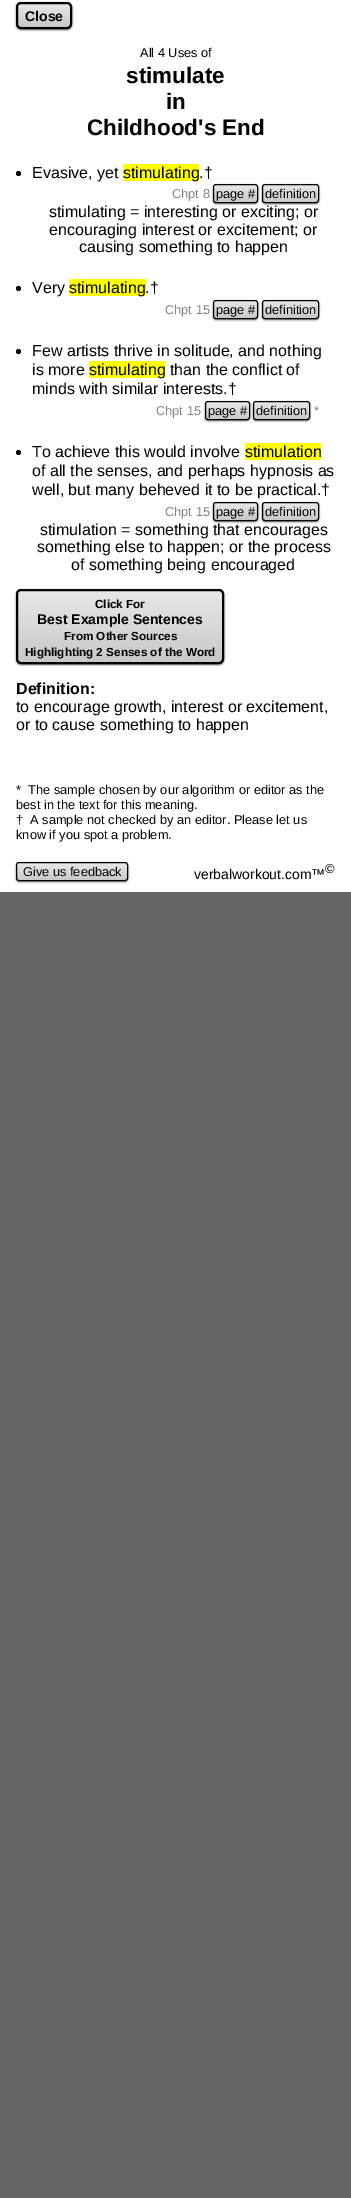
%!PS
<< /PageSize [351 2198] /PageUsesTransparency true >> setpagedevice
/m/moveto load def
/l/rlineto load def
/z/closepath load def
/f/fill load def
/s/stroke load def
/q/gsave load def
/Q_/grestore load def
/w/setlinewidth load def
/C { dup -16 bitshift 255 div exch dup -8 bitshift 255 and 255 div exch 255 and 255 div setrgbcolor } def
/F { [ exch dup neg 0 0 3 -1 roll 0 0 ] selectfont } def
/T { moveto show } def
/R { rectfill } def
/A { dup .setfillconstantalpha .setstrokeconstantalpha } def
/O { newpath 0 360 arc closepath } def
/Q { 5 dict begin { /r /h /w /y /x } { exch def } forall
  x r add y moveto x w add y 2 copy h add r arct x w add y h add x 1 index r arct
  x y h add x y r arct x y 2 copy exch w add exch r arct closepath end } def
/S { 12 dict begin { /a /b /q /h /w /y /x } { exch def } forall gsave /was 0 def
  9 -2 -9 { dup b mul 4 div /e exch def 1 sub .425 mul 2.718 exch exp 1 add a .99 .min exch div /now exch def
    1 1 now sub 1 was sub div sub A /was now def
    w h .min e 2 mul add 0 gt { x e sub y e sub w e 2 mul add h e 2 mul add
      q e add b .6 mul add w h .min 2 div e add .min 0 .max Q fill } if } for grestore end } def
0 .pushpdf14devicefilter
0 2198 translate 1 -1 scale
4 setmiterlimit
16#666666 C
0 0 351 2198 R
16#FFFFFF C
0 0 351 892 R
16#666666 C
16 3 56 27 5 1 1 S
q
16 2 56 27 5 Q clip newpath
q 16 4 m 56 0 l 0 23 l -56 0 l z clip newpath
<< /ShadingType 2 /ColorSpace /DeviceRGB /Coords [44 4 44 27] /Extend [true true] /Function << /FunctionType 2 /Domain [0 1] /C0 [.91 .91 .91] /C1 [.784 .784 .784] /N 1 >> >> shfill Q_
Q_
16#000000 C
2 w
17 3 54 25 4 Q s
/LiberationSans-Bold 14 F
(Close) 25 21 T
/LiberationSans-Regular 12.8 F
(All 4 Uses of) 140 57 T
/LiberationSans-Bold 22.5 F
(stimulate) 126 83 T
(in) 166 109 T
(Childhood's End) 87 135 T
18.5 173.5 2.5 O f
/LiberationSans-Regular 16 F
(Evasive, yet) 32 178 T
16#FFFF00 C
123 164 76 17 R
16#000000 C
(stimulating.†) 123 178 T
/LiberationSans-Regular 12.8 F
16#808080 C
(Chpt 8) 172 198 T
16#666666 C
213 185 45 19 3 1 1 S
q
213 184 45 19 3 Q clip newpath
q 213 185 m 45 0 l 0 17 l -45 0 l z clip newpath
<< /ShadingType 2 /ColorSpace /DeviceRGB /Coords [236 185 236 202] /Extend [true true] /Function << /FunctionType 2 /Domain [0 1] /C0 [.91 .91 .91] /C1 [.784 .784 .784] /N 1 >> >> shfill Q_
Q_
16#000000 C
1 w
213.5 184.5 44 18 2.5 Q s
(page #) 216 198 T
16#666666 C
262 185 57 19 3 1 1 S
q
262 184 57 19 3 Q clip newpath
q 262 185 m 57 0 l 0 17 l -57 0 l z clip newpath
<< /ShadingType 2 /ColorSpace /DeviceRGB /Coords [291 185 291 202] /Extend [true true] /Function << /FunctionType 2 /Domain [0 1] /C0 [.91 .91 .91] /C1 [.784 .784 .784] /N 1 >> >> shfill Q_
Q_
16#000000 C
262.5 184.5 56 18 2.5 Q s
(definition) 265 198 T
/LiberationSans-Regular 16 F
(stimulating = interesting or exciting; or) 49 217 T
(encouraging interest or excitement; or) 49 235 T
(causing something to happen) 79 252 T
18.5 288.5 2.5 O f
(Very) 32 293 T
16#FFFF00 C
69 279 77 17 R
16#000000 C
(stimulating.†) 69 293 T
/LiberationSans-Regular 12.8 F
16#808080 C
(Chpt 15) 165 314 T
16#666666 C
213 301 45 19 3 1 1 S
q
213 300 45 19 3 Q clip newpath
q 213 301 m 45 0 l 0 17 l -45 0 l z clip newpath
<< /ShadingType 2 /ColorSpace /DeviceRGB /Coords [236 301 236 318] /Extend [true true] /Function << /FunctionType 2 /Domain [0 1] /C0 [.91 .91 .91] /C1 [.784 .784 .784] /N 1 >> >> shfill Q_
Q_
16#000000 C
213.5 300.5 44 18 2.5 Q s
(page #) 216 314 T
16#666666 C
262 301 57 19 3 1 1 S
q
262 300 57 19 3 Q clip newpath
q 262 301 m 57 0 l 0 17 l -57 0 l z clip newpath
<< /ShadingType 2 /ColorSpace /DeviceRGB /Coords [291 301 291 318] /Extend [true true] /Function << /FunctionType 2 /Domain [0 1] /C0 [.91 .91 .91] /C1 [.784 .784 .784] /N 1 >> >> shfill Q_
Q_
16#000000 C
262.5 300.5 56 18 2.5 Q s
(definition) 265 314 T
18.5 351.5 2.5 O f
/LiberationSans-Regular 16 F
(Few artists thrive in solitude, and nothing) 32 356 T
(is more) 32 375 T
16#FFFF00 C
89 361 76 17 R
16#000000 C
(stimulating than the conflict of) 89 375 T
(minds with similar interests.†) 32 394 T
/LiberationSans-Regular 12.8 F
16#808080 C
(Chpt 15) 156 415 T
16#666666 C
205 402 45 19 3 1 1 S
q
205 401 45 19 3 Q clip newpath
q 205 402 m 45 0 l 0 17 l -45 0 l z clip newpath
<< /ShadingType 2 /ColorSpace /DeviceRGB /Coords [228 402 228 419] /Extend [true true] /Function << /FunctionType 2 /Domain [0 1] /C0 [.91 .91 .91] /C1 [.784 .784 .784] /N 1 >> >> shfill Q_
Q_
16#000000 C
205.5 401.5 44 18 2.5 Q s
(page #) 208 415 T
16#666666 C
253 402 57 19 3 1 1 S
q
253 401 57 19 3 Q clip newpath
q 253 402 m 57 0 l 0 17 l -57 0 l z clip newpath
<< /ShadingType 2 /ColorSpace /DeviceRGB /Coords [282 402 282 419] /Extend [true true] /Function << /FunctionType 2 /Domain [0 1] /C0 [.91 .91 .91] /C1 [.784 .784 .784] /N 1 >> >> shfill Q_
Q_
16#000000 C
253.5 401.5 56 18 2.5 Q s
(definition) 256 415 T
16#808080 C
(*) 314 415 T
16#000000 C
18.5 452.5 2.5 O f
/LiberationSans-Regular 16 F
(To achieve this would involve) 32 457 T
16#FFFF00 C
245 443 76 17 R
16#000000 C
(stimulation) 245 457 T
(of all the senses, and perhaps hypnosis as) 32 476 T
(well, but many beheved it to be practical.†) 32 495 T
/LiberationSans-Regular 12.8 F
16#808080 C
(Chpt 15) 165 516 T
16#666666 C
213 503 45 19 3 1 1 S
q
213 502 45 19 3 Q clip newpath
q 213 503 m 45 0 l 0 17 l -45 0 l z clip newpath
<< /ShadingType 2 /ColorSpace /DeviceRGB /Coords [236 503 236 520] /Extend [true true] /Function << /FunctionType 2 /Domain [0 1] /C0 [.91 .91 .91] /C1 [.784 .784 .784] /N 1 >> >> shfill Q_
Q_
16#000000 C
213.5 502.5 44 18 2.5 Q s
(page #) 216 516 T
16#666666 C
262 503 57 19 3 1 1 S
q
262 502 57 19 3 Q clip newpath
q 262 503 m 57 0 l 0 17 l -57 0 l z clip newpath
<< /ShadingType 2 /ColorSpace /DeviceRGB /Coords [291 503 291 520] /Extend [true true] /Function << /FunctionType 2 /Domain [0 1] /C0 [.91 .91 .91] /C1 [.784 .784 .784] /N 1 >> >> shfill Q_
Q_
16#000000 C
262.5 502.5 56 18 2.5 Q s
(definition) 265 516 T
/LiberationSans-Regular 16 F
(stimulation = something that encourages) 40 535 T
(something else to happen; or the process) 37 552 T
(of something being encouraged) 71 570 T
16#666666 C
16 590 208 75 5 1 1 S
q
16 589 208 75 5 Q clip newpath
q 16 591 m 208 0 l 0 71 l -208 0 l z clip newpath
<< /ShadingType 2 /ColorSpace /DeviceRGB /Coords [120 591 120 662] /Extend [true true] /Function << /FunctionType 2 /Domain [0 1] /C0 [.91 .91 .91] /C1 [.784 .784 .784] /N 1 >> >> shfill Q_
Q_
16#000000 C
2 w
17 590 206 73 4 Q s
/LiberationSans-Bold 11.7 F
(Click For) 95 608 T
/LiberationSans-Bold 14 F
(Best Example Sentences) 37 624 T
/LiberationSans-Bold 11.7 F
(From Other Sources) 64 640 T
(Highlighting 2 Senses of the Word) 25 656 T
/LiberationSans-Bold 16 F
(Definition:) 16 694 T
/LiberationSans-Regular 16 F
(to encourage growth, interest or excitement,) 16 712 T
(or to cause something to happen) 16 730 T
/LiberationSans-Regular 12.8 F
(*  The sample chosen by our algorithm or editor as the) 16 794 T
(best in the text for this meaning.) 16 809 T
(†  A sample not checked by an editor. Please let us) 16 824 T
(know if you spot a problem.) 16 839 T
16#666666 C
16 863 112 19 3 1 1 S
q
16 862 112 19 3 Q clip newpath
q 16 863 m 112 0 l 0 17 l -112 0 l z clip newpath
<< /ShadingType 2 /ColorSpace /DeviceRGB /Coords [72 863 72 880] /Extend [true true] /Function << /FunctionType 2 /Domain [0 1] /C0 [.91 .91 .91] /C1 [.784 .784 .784] /N 1 >> >> shfill Q_
Q_
16#000000 C
1 w
16.5 862.5 111 18 2.5 Q s
(Give us feedback) 23 876 T
/LiberationSans-Regular 14 F
(verbalworkout.com™) 194 879 T
/LiberationSans-Regular 13 F
(©) 325 873 T
.poppdf14devicefilter showpage
